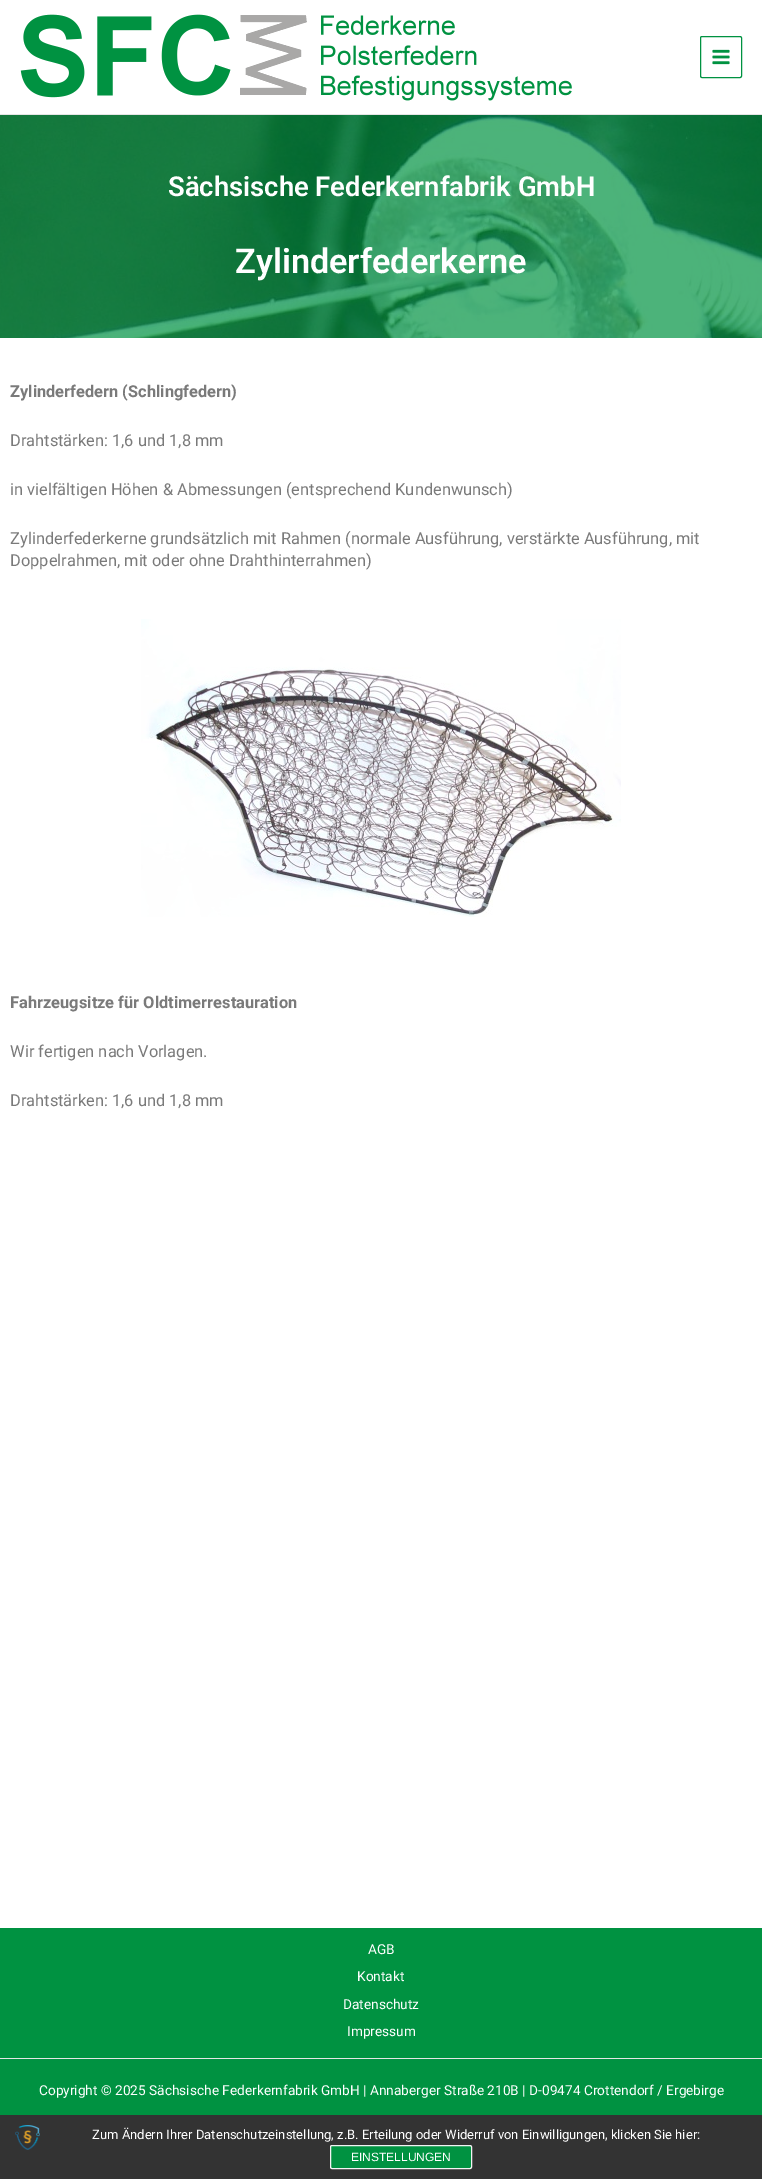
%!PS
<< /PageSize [762 2179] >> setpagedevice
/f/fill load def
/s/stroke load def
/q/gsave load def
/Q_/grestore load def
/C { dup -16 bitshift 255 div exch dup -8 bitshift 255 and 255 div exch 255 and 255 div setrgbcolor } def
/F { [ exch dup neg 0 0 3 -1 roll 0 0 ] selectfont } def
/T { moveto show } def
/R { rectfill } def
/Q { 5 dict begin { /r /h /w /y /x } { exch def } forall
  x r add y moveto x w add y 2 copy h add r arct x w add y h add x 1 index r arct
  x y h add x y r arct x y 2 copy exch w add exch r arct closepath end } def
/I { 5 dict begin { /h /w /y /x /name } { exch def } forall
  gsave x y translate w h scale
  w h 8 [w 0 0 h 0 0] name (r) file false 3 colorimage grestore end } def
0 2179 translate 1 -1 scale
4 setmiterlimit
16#FFFFFF C
0 0 762 2179 R
16#E5E5E5 C
0 114 762 1 R
(1.rgb) 20 14 552 87 I
16#009241 C
700.5 36.5 41 41 1.5 Q s
(2.rgb) 712 49 18 16 I
(3.rgb) 0 115 762 223 I
/Roboto-SemiBold 27.4 F
16#FFFFFF C
(Sächsische Federkernfabrik GmbH) 168 196 T
/Roboto-SemiBold 34.25 F
(Zylinderfederkerne) 235 273 T
/Roboto-Bold 16.4 F
16#7A7A7A C
(Zylinderfedern \(Schlingfedern\)) 10 397 T
/Roboto-Regular 16.4 F
(Drahtstärken: 1,6 und 1,8 mm) 10 446 T
(in vielfältigen Höhen & Abmessungen \(entsprechend Kundenwunsch\)) 10 495 T
(Zylinderfederkerne grundsätzlich mit Rahmen \(normale Ausführung, verstärkte Ausführung, mit) 10 544 T
(Doppelrahmen, mit oder ohne Drahthinterrahmen\)) 10 566 T
(4.rgb) 141 619 480 298 I
/Roboto-Bold 16.4 F
(Fahrzeugsitze für Oldtimerrestauration) 10 1008 T
/Roboto-Regular 16.4 F
(Wir fertigen nach Vorlagen.) 10 1057 T
(Drahtstärken: 1,6 und 1,8 mm) 10 1106 T
16#009241 C
0 1928 762 130 R
/Roboto-Regular 13.68 F
16#FFFFFF C
(AGB) 368 1954 T
(Kontakt) 357 1981 T
(Datenschutz) 343 2009 T
(Impressum) 347 2036 T
16#009241 C
0 2059 762 56 R
16#E5E5E5 C
0 2058 762 1 R
16#FFFFFF C
(Copyright © 2025 Sächsische Federkernfabrik GmbH | Annaberger Straße 210B | D-09474 Crottendorf / Ergebirge) 39 2095 T
16#333333 C
0 2115 762 64 R
(5.rgb) 15 2125 25 25 I
/Roboto-Regular 13 F
16#FFFFFF C
(Zum Ändern Ihrer Datenschutzeinstellung, z.B. Erteilung oder Widerruf von Einwilligungen, klicken Sie hier:) 92 2139 T
16#009241 C
330.5 2145.5 141 23 1.5 Q q f Q_
16#F3F3F3 C
s
/LiberationSans-Regular 12 F
16#FFFFFF C
(EINSTELLUNGEN) 351 2161 T
showpage
